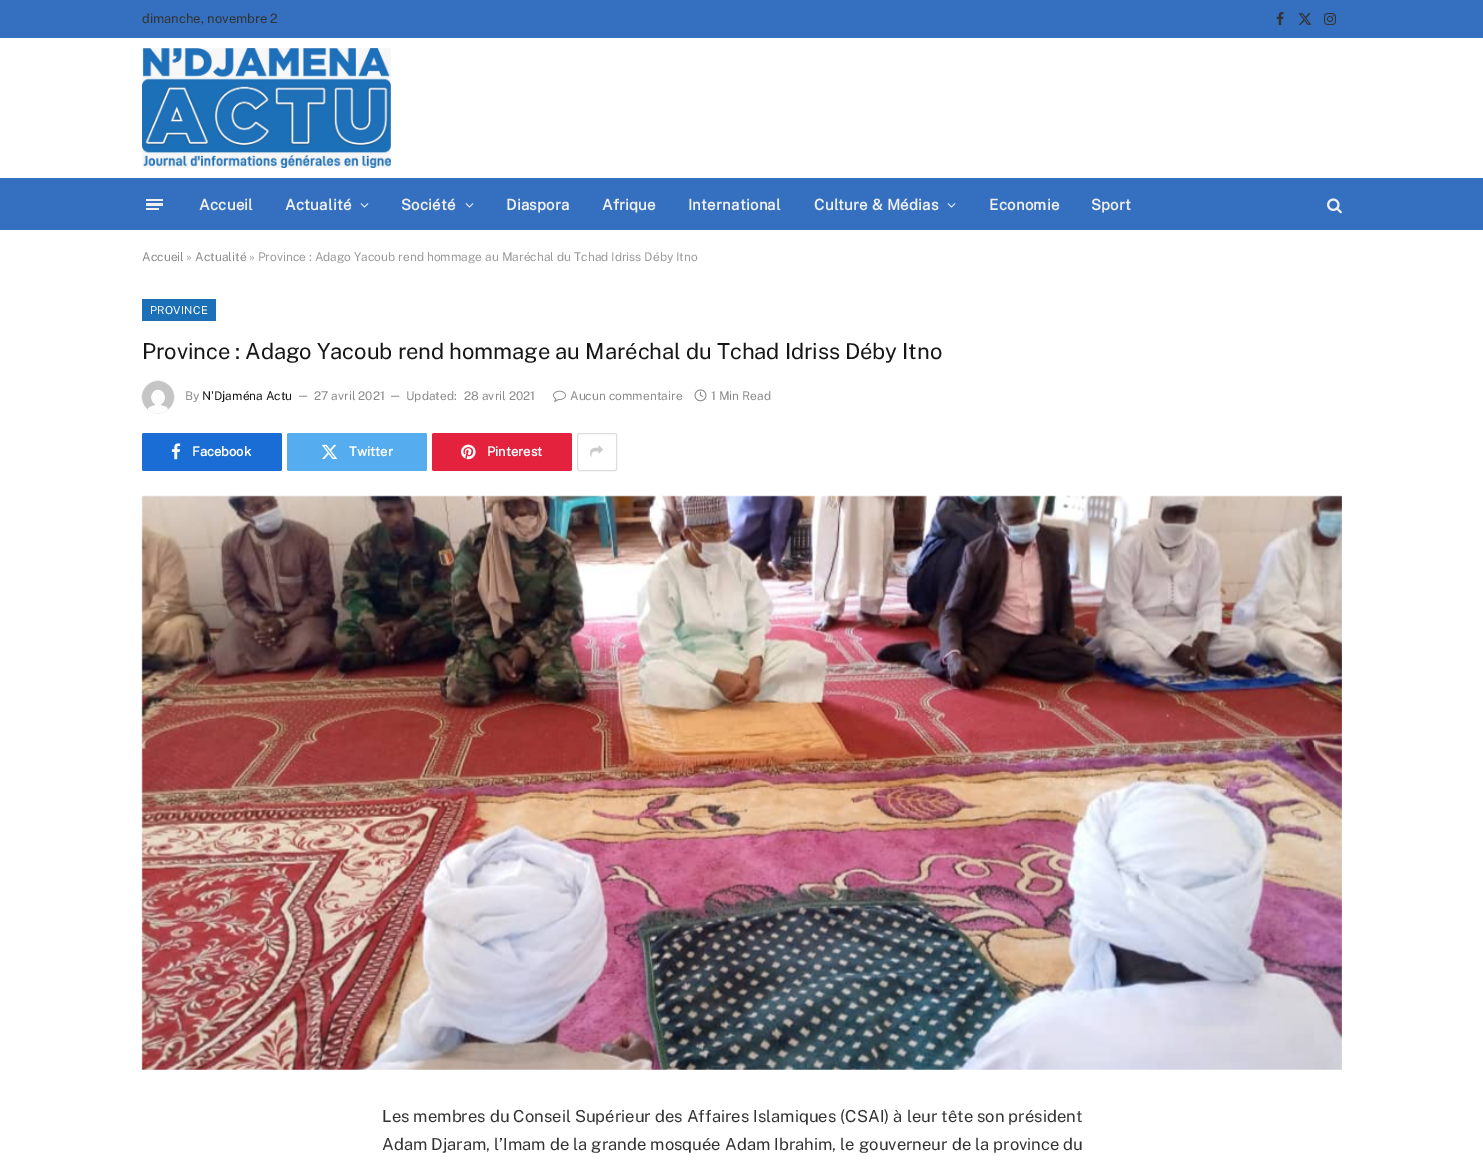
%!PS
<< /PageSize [1483 1171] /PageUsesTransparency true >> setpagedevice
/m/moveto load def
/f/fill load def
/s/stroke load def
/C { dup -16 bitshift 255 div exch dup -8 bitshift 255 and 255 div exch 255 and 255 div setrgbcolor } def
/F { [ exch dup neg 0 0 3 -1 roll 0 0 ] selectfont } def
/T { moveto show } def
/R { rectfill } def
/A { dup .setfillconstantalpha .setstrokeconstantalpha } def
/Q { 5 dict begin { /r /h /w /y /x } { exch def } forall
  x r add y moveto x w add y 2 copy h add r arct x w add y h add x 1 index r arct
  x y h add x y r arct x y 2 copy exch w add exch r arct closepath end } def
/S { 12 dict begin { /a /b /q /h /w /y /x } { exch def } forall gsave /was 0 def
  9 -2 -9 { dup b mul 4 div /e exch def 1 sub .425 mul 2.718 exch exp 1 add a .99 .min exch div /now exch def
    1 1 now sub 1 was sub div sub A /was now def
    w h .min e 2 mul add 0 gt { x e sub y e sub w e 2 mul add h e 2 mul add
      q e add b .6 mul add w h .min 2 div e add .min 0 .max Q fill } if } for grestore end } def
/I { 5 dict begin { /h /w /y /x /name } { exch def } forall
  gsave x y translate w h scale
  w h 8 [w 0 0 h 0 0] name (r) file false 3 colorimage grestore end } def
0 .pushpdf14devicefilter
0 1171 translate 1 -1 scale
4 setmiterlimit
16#FFFFFF C
0 0 1483 1171 R
16#3470BF C
0 0 1483 38 R
/PublicSans-Thin 13 F
16#333333 C
(dimanche, novembre 2) 142 23 T
(1.rgb) 1276 12 8 13 I
(2.rgb) 1298 13 14 12 I
(3.rgb) 1324 13 12 12 I
(4.rgb) 142 48 249 120 I
16#3470BF C
0 178 1483 52 R
16#F0F0F0 C
146 208 13 2 R
146 199 17 2 R
146 203 17 3 R
/PublicSans-Bold 15 F
199 210 m .25 0 (Accueil) ashow
285 210 m .25 0 (Actualité) ashow
(5.rgb) 360 203 9 5 I
401 210 m .25 0 (Société) ashow
(5.rgb) 465 203 9 5 I
506 210 m .25 0 (Diaspora) ashow
602 210 m .25 0 (Afrique) ashow
688 210 m .25 0 (International) ashow
814 210 m .25 0 (Culture & Médias) ashow
(5.rgb) 947 203 9 5 I
989 210 m .25 0 (Economie) ashow
1091 210 m .25 0 (Sport) ashow
(6.rgb) 1327 198 15 16 I
/PublicSans-Thin 12 F
16#8A8A8A C
(Accueil) 142 261 T
16#999999 C
(») 186 261 T
16#8A8A8A C
(Actualité) 195 261 T
16#999999 C
(» Province : Adago Yacoub rend hommage au Maréchal du Tchad Idriss Déby Itno) 249 261 T
16#1C70B8 C
142 299 74 22 1 Q f
/PublicSans-Thin 11 F
16#FFFFFF C
150 314 m .25 0 (PROVINCE) ashow
/PublicSans-Thin 22 F
16#161616 C
142 359 m -.1 0 (Province : Adago Yacoub rend hommage au Maréchal du Tchad Idriss Déby Itno) ashow
16#000000 C
142 381 32 32 16 .5 .2 S
(7.rgb) 142 381 32 32 I
/PublicSans-Thin 12 F
16#8A8A8A C
(By) 185 400 T
16#161616 C
(N'Djaména Actu) 202 400 T
/PublicSans-Thin 11 F
16#8A8A8A C
(—) 297 399 T
/PublicSans-Thin 12 F
(27 avril 2021) 314 400 T
/PublicSans-Thin 11 F
(—) 389 399 T
/PublicSans-Thin 12 F
(Updated:) 406 400 T
(28 avril 2021) 464 400 T
(8.rgb) 553 390 13 12 I
(Aucun commentaire) 570 400 T
(9.rgb) 694 389 13 13 I
(1 Min Read) 711 400 T
16#1A6DD4 C
142 433 140 38 2 Q f
(10.rgb) 171 443 10 17 I
/PublicSans-Bold 13 F
16#FFFFFF C
(Facebook) 192 456 T
16#55ACEF C
287 433 140 38 2 Q f
(11.rgb) 321 444 17 15 I
16#FFFFFF C
(Twitter) 349 456 T
16#E4223E C
432 433 140 38 2 Q f
(12.rgb) 461 444 15 16 I
16#FFFFFF C
(Pinterest) 487 456 T
16#DDDDDD C
577.5 433.5 39 37 1.5 Q s
(13.rgb) 590 445 13 12 I
(14.rgb) 141 495 1201 575 I
/PublicSans-Thin 16.6 F
16#333333 C
(Les membres du Conseil Supérieur des Affaires Islamiques \(CSAI\) à leur tête son président) 382 1122 T
(Adam Djaram, l’Imam de la grande mosquée Adam Ibrahim, le gouverneur de la province du) 382 1150 T
.poppdf14devicefilter showpage
